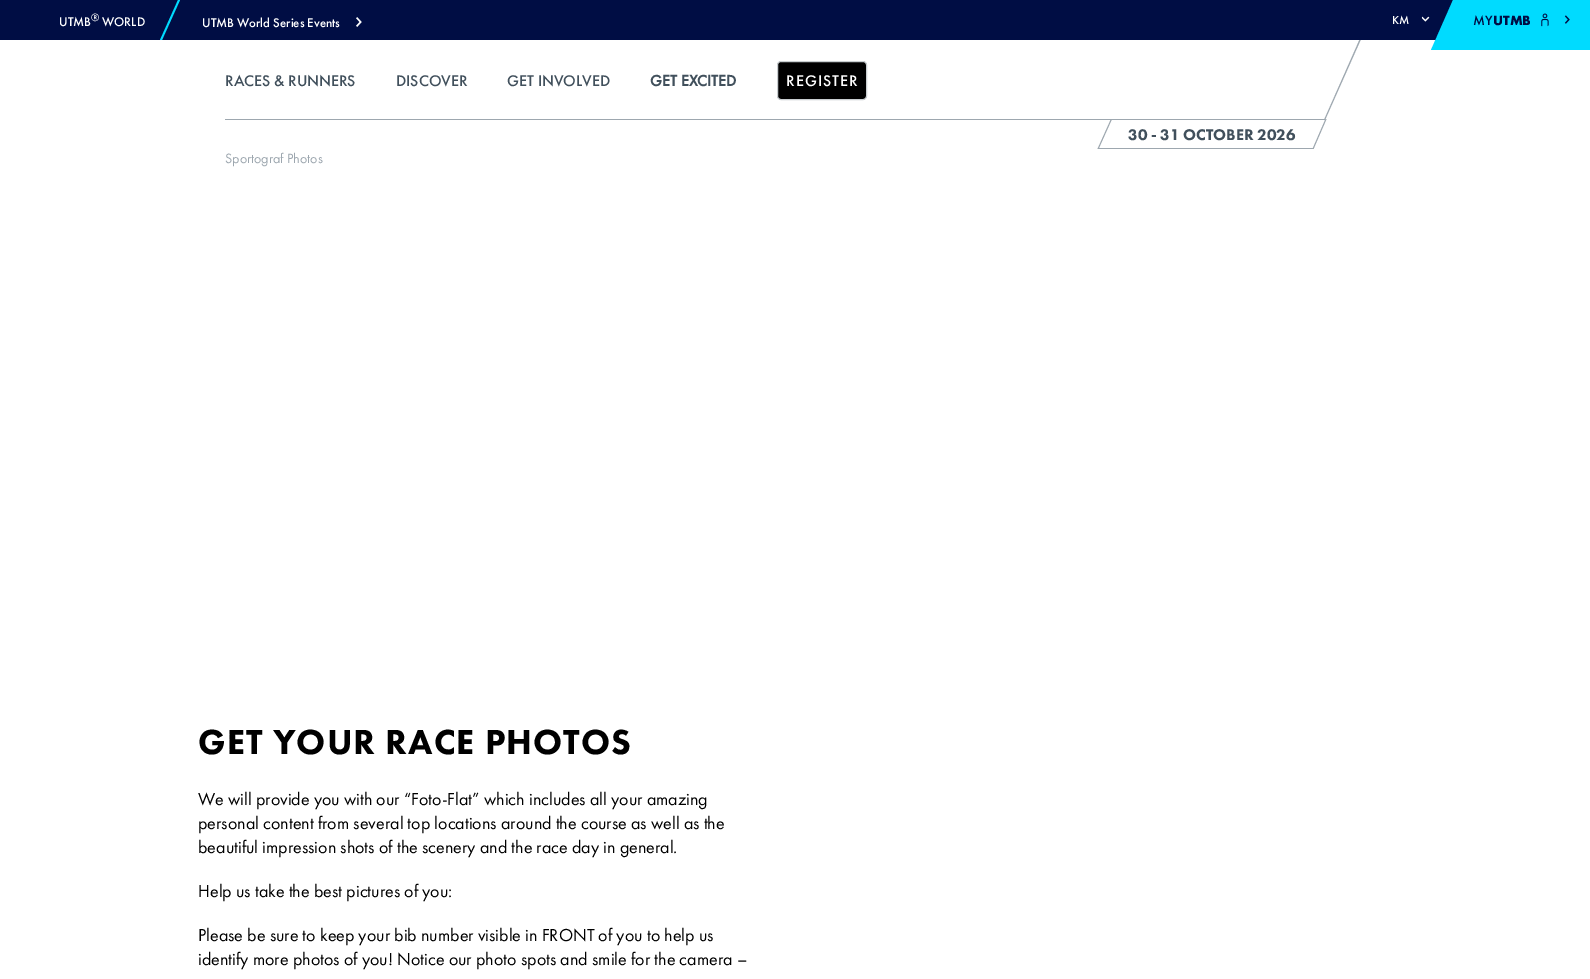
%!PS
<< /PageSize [1590 979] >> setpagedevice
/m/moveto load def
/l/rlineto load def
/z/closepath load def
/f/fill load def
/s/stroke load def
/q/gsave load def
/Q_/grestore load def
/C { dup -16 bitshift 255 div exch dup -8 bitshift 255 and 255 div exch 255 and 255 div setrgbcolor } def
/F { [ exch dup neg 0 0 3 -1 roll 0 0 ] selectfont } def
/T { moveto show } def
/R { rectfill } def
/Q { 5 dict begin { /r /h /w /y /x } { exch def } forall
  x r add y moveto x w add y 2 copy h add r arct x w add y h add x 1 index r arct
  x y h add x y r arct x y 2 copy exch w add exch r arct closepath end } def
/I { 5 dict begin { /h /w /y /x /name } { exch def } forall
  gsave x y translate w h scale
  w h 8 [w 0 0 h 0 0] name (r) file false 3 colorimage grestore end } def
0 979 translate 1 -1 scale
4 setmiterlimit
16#FFFFFF C
0 0 1590 979 R
16#9DA7AF C
225 119 1100 1 R
1390 -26 m -65 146 l -1 0 l 65 -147 l z f
16#000D44 C
0 0 1453 40 R
/FuturaPT-Medium 13 F
16#FFFFFF C
(UTMB) 59 26 T
/FuturaPT-Medium 11 F
(®) 91 21 T
/FuturaPT-Medium 13 F
(WORLD) 102 26 T
16#00DBFF C
178 0 m 2 0 l -18 40 l -2 0 l z f
16#FFFFFF C
(UTMB World Series Events) 202 27 T
(1.rgb) 356 17 6 10 I
/FuturaPT-Medium 12 F
(KM) 1392 24 T
(2.rgb) 1421 16 9 6 I
16#00DBFF C
1453 0 m 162 0 l -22 50 l -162 0 l z f
/FuturaPT-Medium 14 F
16#000D44 C
(MY) 1473 25 T
/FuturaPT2-Bold 14 F
(UTMB) 1493 25 T
(3.rgb) 1541 13 8 14 I
(4.rgb) 1564 15 6 9 I
/FuturaPT-Medium 16 F
16#41505C C
(RACES & RUNNERS) 225 86 T
(DISCOVER) 396 86 T
(GET INVOLVED) 507 86 T
/FuturaPT-Bold 16 F
(GET EXCITED) 650 86 T
16#000000 C
777.5 61.5 89 38 3.5 Q q f Q_
16#C9CED1 C
s
/FuturaPT-Medium 16 F
16#FFFFFF C
786 86 m 1 0 (REGISTER) ashow
16#9DA7AF C
1325.5 119 m 1 0 l -13 30 l -1 0 l z f
1098 148 m 216 0 l -1 1 l -215 0 l z f
1111 119 m 1 0 l -13.5 30 l -1 0 l z f
/FuturaPT-Black 16 F
16#41505C C
(30 - 31 OCTOBER 2026) 1128 140 T
/FuturaPT-Regular 14 F
16#9DA7AF C
(Sportograf Photos) 225 163 T
/FuturaPT-Black 36 F
16#000000 C
198 754 m 1 0 (GET YOUR RACE PHOTOS) ashow
/FuturaPT-Regular 18 F
(We will provide you with our “Foto-Flat” which includes all your amazing) 198 805 T
(personal content from several top locations around the course as well as the) 198 829 T
(beautiful impression shots of the scenery and the race day in general.) 198 853 T
(Help us take the best pictures of you:) 198 897 T
(Please be sure to keep your bib number visible in FRONT of you to help us) 198 941 T
(identify more photos of you! Notice our photo spots and smile for the camera –) 198 965 T
showpage
